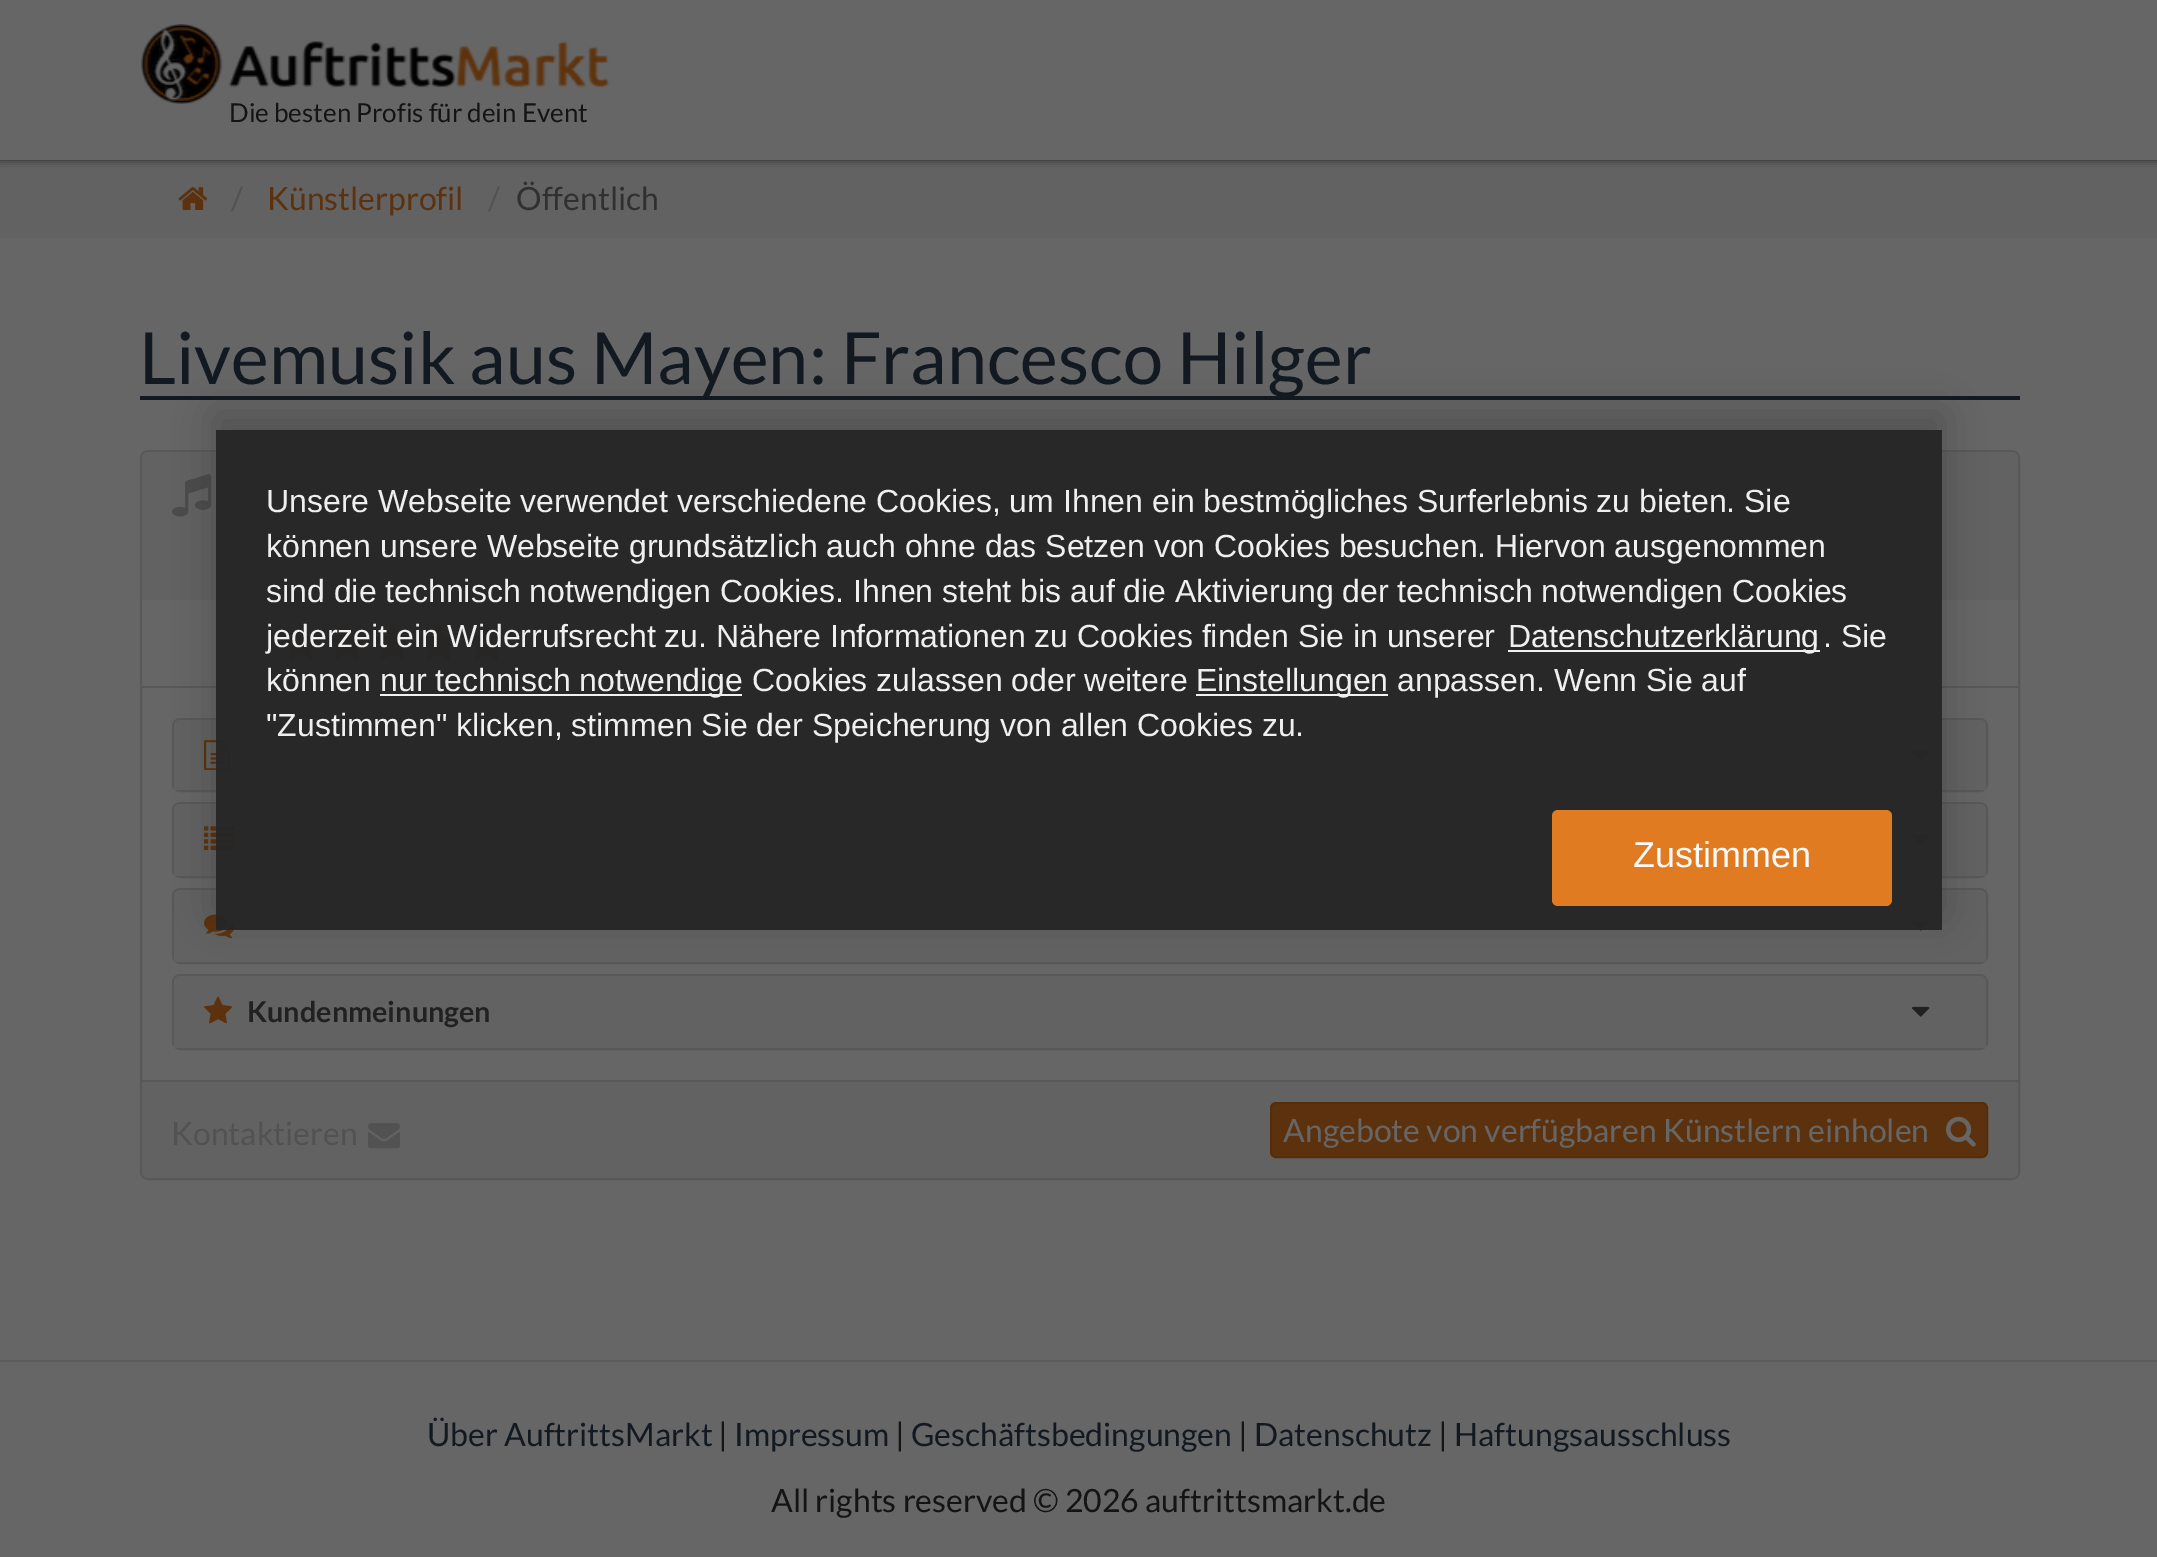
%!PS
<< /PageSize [2157 1557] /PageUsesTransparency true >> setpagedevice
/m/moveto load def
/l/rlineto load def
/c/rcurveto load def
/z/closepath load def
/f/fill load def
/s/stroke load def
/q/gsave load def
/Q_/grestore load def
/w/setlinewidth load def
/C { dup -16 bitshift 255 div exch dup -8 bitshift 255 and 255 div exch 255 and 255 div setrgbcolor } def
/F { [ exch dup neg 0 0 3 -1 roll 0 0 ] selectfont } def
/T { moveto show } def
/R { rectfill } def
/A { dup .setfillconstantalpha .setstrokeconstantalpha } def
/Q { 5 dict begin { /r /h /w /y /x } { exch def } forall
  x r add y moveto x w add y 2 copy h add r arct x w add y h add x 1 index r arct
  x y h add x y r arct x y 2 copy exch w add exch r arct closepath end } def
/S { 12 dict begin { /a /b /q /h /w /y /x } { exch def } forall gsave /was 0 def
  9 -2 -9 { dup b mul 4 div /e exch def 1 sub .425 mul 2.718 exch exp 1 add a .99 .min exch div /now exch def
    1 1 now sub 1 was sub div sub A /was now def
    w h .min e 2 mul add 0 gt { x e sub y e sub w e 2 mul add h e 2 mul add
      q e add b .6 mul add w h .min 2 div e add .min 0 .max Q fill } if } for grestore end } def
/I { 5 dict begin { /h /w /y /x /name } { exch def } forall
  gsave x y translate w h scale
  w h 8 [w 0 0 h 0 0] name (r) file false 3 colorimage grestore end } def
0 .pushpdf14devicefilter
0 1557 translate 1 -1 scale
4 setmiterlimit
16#666666 C
0 0 2157 1557 R
16#626262 C
0 160 2157 78 R
q
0 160 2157 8 rectclip
16#141414 C
0 0 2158 160 0 4 .75 S
Q_
(1.rgb) 141 24 469 80 I
/Lato-Regular 26 F
16#141414 C
(Die besten Profis für dein Event) 229 122 T
(2.rgb) 178 187 30 23 I
/Lato-Regular 32 F
16#525252 C
(/) 231 210 T
16#5C320E C
(Künstlerprofil) 267 210 T
16#525252 C
(/) 488 210 T
16#303030 C
(Öffentlich) 516 210 T
16#121920 C
140 396 1880 4 R
/Lato-Regular 72 F
(Livemusik aus Mayen: Francesco Hilger) 139 384 T
16#585858 C
2 w
141 451 1878 728 7 Q s
16#626262 C
148 452 m 1864 0 l 3.5 0 6 2.5 6 6 c 0 230 l -1876 0 l 0 -230 l 0 -3.5 2.5 -6 6 -6 c z f
16#585858 C
142 686 1876 2 R
(3.rgb) 172 474 40 43 I
16#666666 C
142 600 1876 86 R
(4.rgb) 282 624 38 36 I
(4.rgb) 328 624 38 36 I
(4.rgb) 374 624 38 36 I
(4.rgb) 420 624 38 36 I
(4.rgb) 468 624 38 36 I
16#585858 C
173 719 1814 72 7 Q s
16#626262 C
180 720 m 1800 0 l 3.5 0 6 2.5 6 6 c 0 64 l -1812 0 l 0 -64 l 0 -3.5 2.5 -6 6 -6 c z f
(5.rgb) 204 740 26 30 I
(6.rgb) 1912 750 18 11 I
16#585858 C
173 803 1814 74 7 Q s
16#626262 C
180 804 m 1800 0 l 3.5 0 6 2.5 6 6 c 0 66 l -1812 0 l 0 -66 l 0 -3.5 2.5 -6 6 -6 c z f
(7.rgb) 204 826 31 24 I
(6.rgb) 1912 834 18 11 I
16#585858 C
173 889 1814 74 7 Q s
16#626262 C
180 890 m 1800 0 l 3.5 0 6 2.5 6 6 c 0 66 l -1812 0 l 0 -66 l 0 -3.5 2.5 -6 6 -6 c z f
(8.rgb) 204 914 31 25 I
(6.rgb) 1912 920 18 11 I
16#585858 C
173 975 1814 74 7 Q s
16#626262 C
180 976 m 1800 0 l 3.5 0 6 2.5 6 6 c 0 66 l -1812 0 l 0 -66 l 0 -3.5 2.5 -6 6 -6 c z f
(9.rgb) 204 996 28 28 I
/Lato-Bold 28.75 F
16#212121 C
(Kundenmeinungen) 247 1022 T
(6.rgb) 1912 1006 18 11 I
16#626262 C
142 1080 m 1876 0 l 0 92 l 0 3.5 -2.5 6 -6 6 c -1864 0 l -3.5 0 -6 -2.5 -6 -6 c z f
16#585858 C
142 1080 1876 2 R
/Lato-Regular 32 F
16#525252 C
(Kontaktieren) 171 1145 T
(10.rgb) 368 1123 32 26 I
16#5C320E C
1271 1103 716 54 5 Q q f Q_
16#562D0A C
s
16#666666 C
(Angebote von verfügbaren Künstlern einholen) 1283 1142 T
(11.rgb) 1946 1116 30 31 I
q
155 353 m 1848 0 l 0 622 l -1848 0 l z 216 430 m 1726 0 l 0 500 l -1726 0 l z eoclip newpath
16#000000 C
216 414 1726 500 0 20 .19 S
Q_
0.97 A
16#262626 C
216 430 1726 500 R
/LiberationSans-Regular 32 F
1 A
16#EFEFEF C
(Unsere Webseite verwendet verschiedene Cookies, um Ihnen ein bestmögliches Surferlebnis zu bieten. Sie) 266 512 T
(können unsere Webseite grundsätzlich auch ohne das Setzen von Cookies besuchen. Hiervon ausgenommen) 266 557 T
(sind die technisch notwendigen Cookies. Ihnen steht bis auf die Aktivierung der technisch notwendigen Cookies) 266 602 T
(jederzeit ein Widerrufsrecht zu. Nähere Informationen zu Cookies finden Sie in unserer) 266 647 T
16#F1F1F1 C
1508 650 312 2 R
16#EFEFEF C
(Datenschutzerklärung) 1508 647 T
(. Sie) 1823 647 T
(können) 266 691 T
16#F1F1F1 C
380 694 362 2 R
16#EFEFEF C
(nur technisch notwendige Cookies zulassen oder weitere) 380 691 T
16#F1F1F1 C
1196 694 192 2 R
16#EFEFEF C
(Einstellungen anpassen. Wenn Sie auf) 1196 691 T
("Zustimmen" klicken, stimmen Sie der Speicherung von allen Cookies zu.) 266 736 T
16#E07B22 C
1552 810 340 96 6 Q f
/LiberationSans-Regular 36 F
16#FAFAFA C
(Zustimmen) 1633 867 T
16#5C5C5C C
0 1360 2157 2 R
/Lato-Regular 32 F
16#121920 C
(Über AuftrittsMarkt) 427 1446 T
16#141414 C
(|) 718 1446 T
16#121920 C
(Impressum) 734 1446 T
16#141414 C
(|) 895 1446 T
16#121920 C
(Geschäftsbedingungen) 911 1446 T
16#141414 C
(|) 1238 1446 T
16#121920 C
(Datenschutz) 1254 1446 T
16#141414 C
(|) 1438 1446 T
16#121920 C
(Haftungsausschluss) 1454 1446 T
16#141414 C
(All rights reserved © 2026 auftrittsmarkt.de) 771 1512 T
.poppdf14devicefilter showpage
